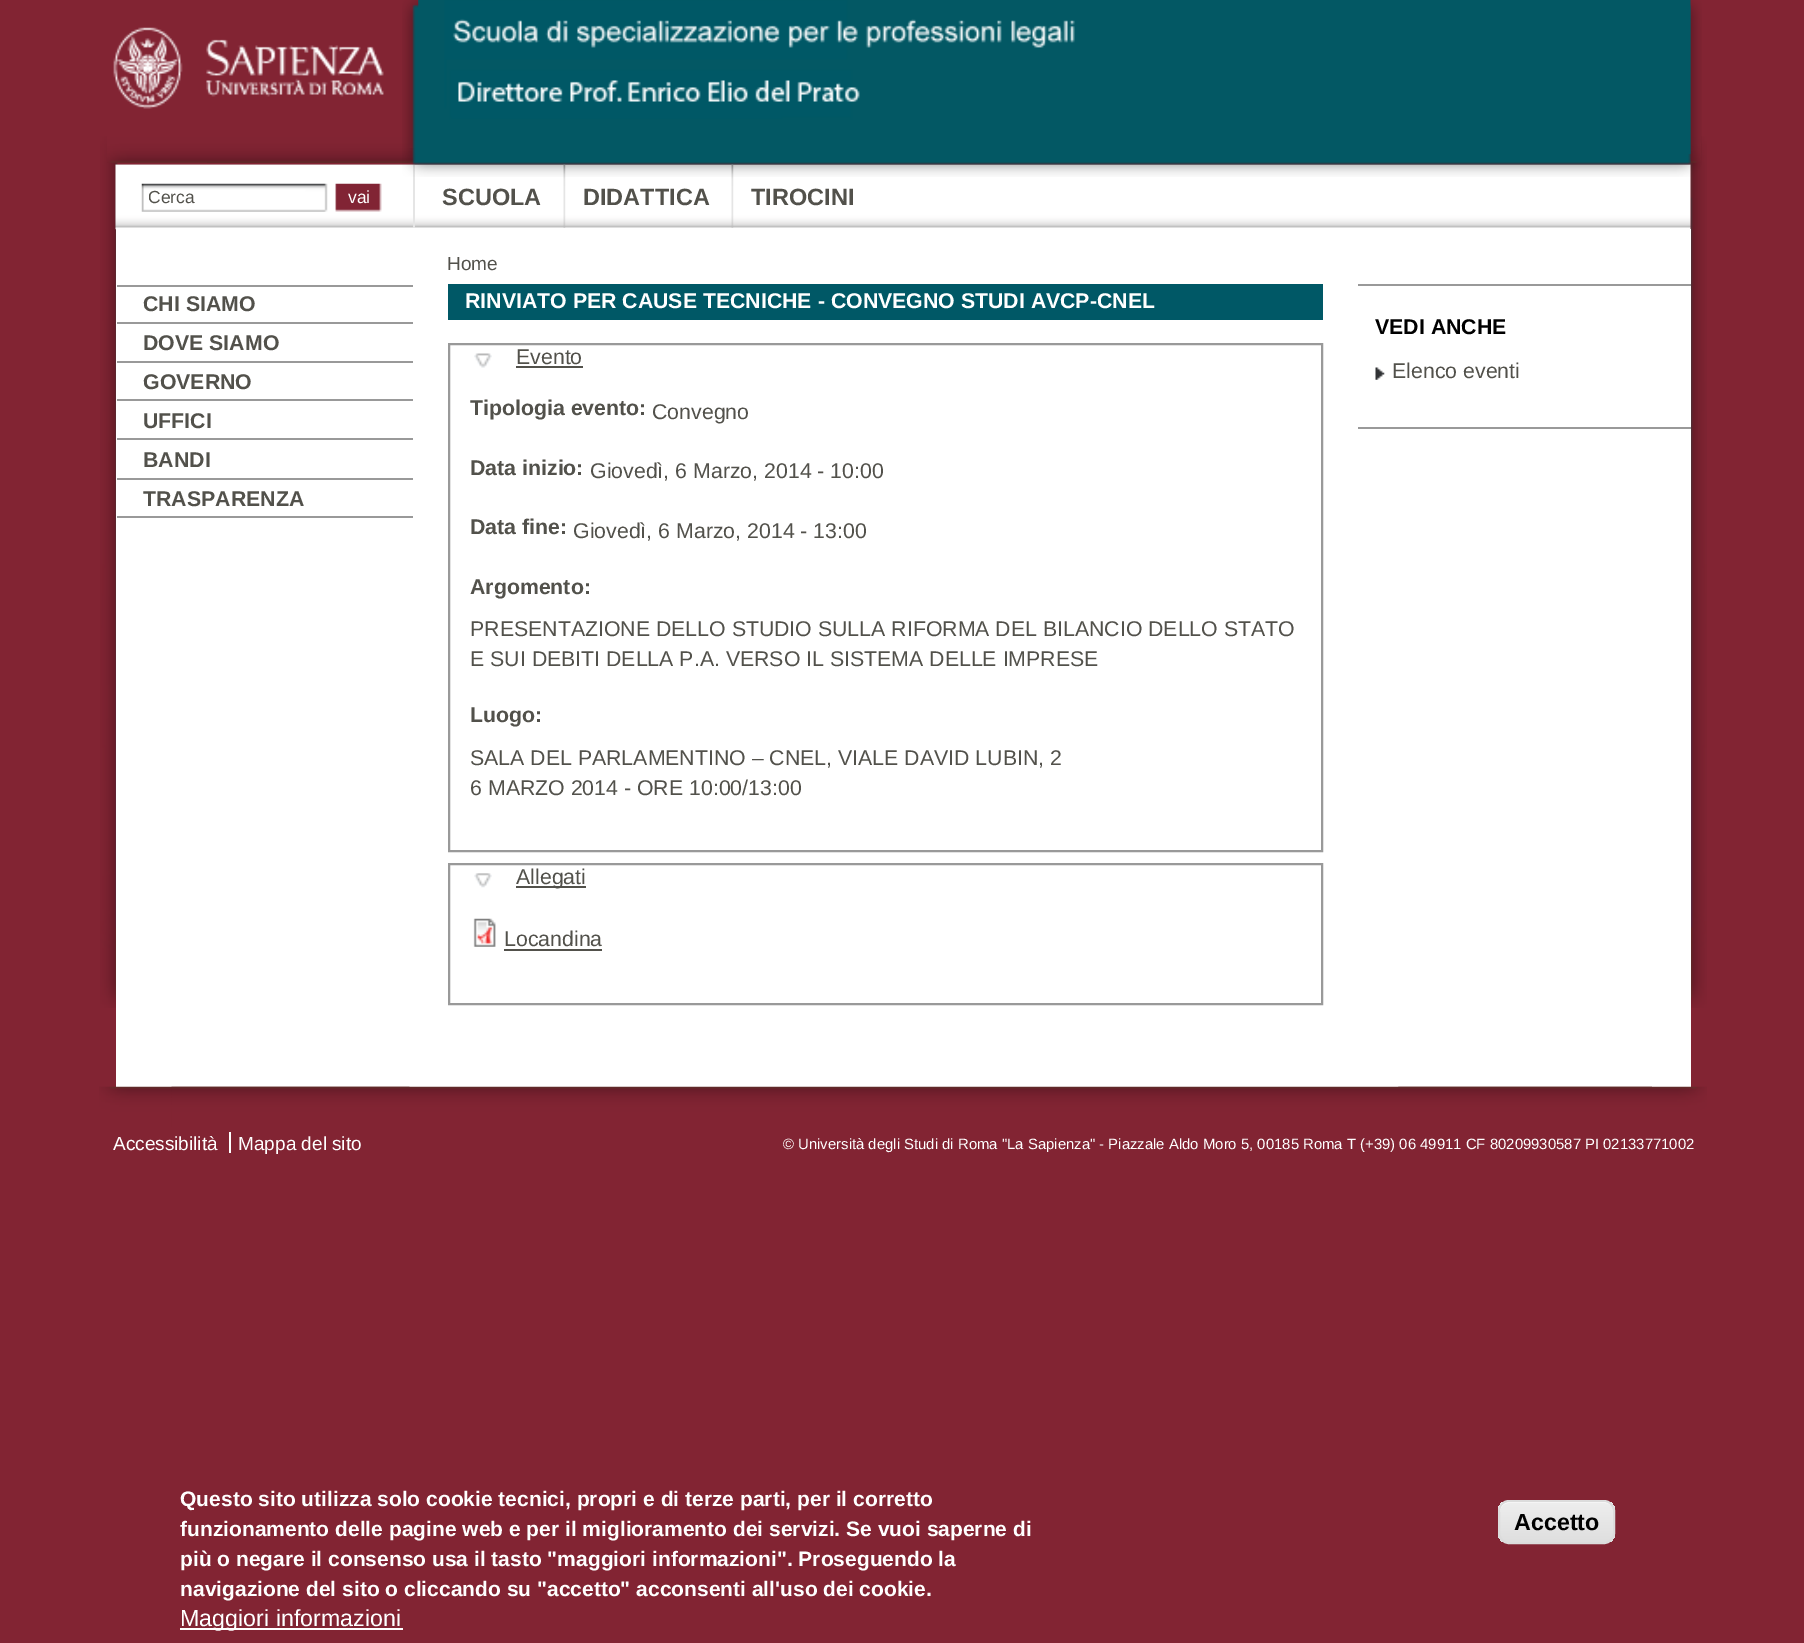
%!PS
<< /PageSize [1804 1643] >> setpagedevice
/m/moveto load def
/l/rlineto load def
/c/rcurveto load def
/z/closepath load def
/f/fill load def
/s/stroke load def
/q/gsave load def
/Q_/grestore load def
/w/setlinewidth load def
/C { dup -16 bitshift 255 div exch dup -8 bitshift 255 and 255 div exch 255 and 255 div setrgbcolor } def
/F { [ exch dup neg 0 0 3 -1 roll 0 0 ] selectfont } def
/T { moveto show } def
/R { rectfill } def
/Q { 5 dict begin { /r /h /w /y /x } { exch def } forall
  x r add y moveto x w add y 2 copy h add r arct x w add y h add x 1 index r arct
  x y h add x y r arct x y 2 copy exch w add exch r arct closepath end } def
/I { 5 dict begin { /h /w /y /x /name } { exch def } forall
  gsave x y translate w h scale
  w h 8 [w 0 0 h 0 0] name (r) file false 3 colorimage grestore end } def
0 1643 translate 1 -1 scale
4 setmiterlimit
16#822433 C
0 0 1804 1643 R
(4.rgb) 1690 136 17 872 I
(6.rgb) 1398 136 303 27 I
(5.rgb) 100 136 18 872 I
(7.rgb) 107 136 303 27 I
(8.rgb) 207 148 1445 15 I
(9.rgb) 115 164 1576 66 I
(11.rgb) 563 164 3 64 I
16#E5E5E5 C
413 165 2 63 R
(11.rgb) 731 164 3 64 I
(1.rgb) 402 0 1300 177 I
(2.rgb) 113 27 271 82 I
(3.rgb) 418 0 1273 154 I
(10.rgb) 141 183 241 29 I
q
149 187 175 20 rectclip
/LiberationSans-Regular 17.5 F
16#52514B C
(Cerca) 148 203 T
Q_
/LiberationSans-Regular 17.5 F
16#FFFFFF C
(vai) 348 203 T
/LiberationSans-Bold 23.5 F
16#52514B C
(SCUOLA) 442 205 T
(DIDATTICA) 583 205 T
(TIROCINI) 751 205 T
16#FFFFFF C
116 229 1575 858 R
/LiberationSans-Regular 19 F
16#52514B C
(Home) 447 270 T
16#999999 C
117 285 296 2 R
117 322 296 2 R
/LiberationSans-Bold 21.3 F
16#52514B C
(CHI SIAMO) 143 311 T
16#999999 C
117 361 296 2 R
16#52514B C
(DOVE SIAMO) 143 350 T
16#999999 C
117 399 296 2 R
16#52514B C
(GOVERNO) 143 389 T
16#999999 C
117 438 296 2 R
16#52514B C
(UFFICI) 143 428 T
16#999999 C
117 478 296 2 R
16#52514B C
(BANDI) 143 467 T
16#999999 C
117 516 296 2 R
16#52514B C
(TRASPARENZA) 143 506 T
16#005866 C
448 284 875 36 R
16#FFFFFF C
(RINVIATO PER CAUSE TECNICHE - CONVEGNO STUDI AVCP-CNEL) 465 308 T
16#999999 C
2 w
449 344 873 507 rectstroke
(12.rgb) 474 353 18 15 I
/LiberationSans-Regular 21.3 F
16#52514B C
(Evento) 516 364 T
516 366 67 2 R
/LiberationSans-Bold 21.3 F
(Tipologia evento:) 470 415 T
/LiberationSans-Regular 21.3 F
(Convegno) 652 419 T
/LiberationSans-Bold 21.3 F
(Data inizio:) 470 475 T
/LiberationSans-Regular 21.3 F
(Giovedì, 6 Marzo, 2014 - 10:00) 590 478 T
/LiberationSans-Bold 21.3 F
(Data fine:) 470 534 T
/LiberationSans-Regular 21.3 F
(Giovedì, 6 Marzo, 2014 - 13:00) 573 538 T
/LiberationSans-Bold 21.3 F
(Argomento:) 470 594 T
/LiberationSans-Regular 21.3 F
(PRESENTAZIONE DELLO STUDIO SULLA RIFORMA DEL BILANCIO DELLO STATO) 470 636 T
(E SUI DEBITI DELLA P.A. VERSO IL SISTEMA DELLE IMPRESE) 470 666 T
/LiberationSans-Bold 21.3 F
(Luogo:) 470 722 T
/LiberationSans-Regular 21.3 F
(SALA DEL PARLAMENTINO – CNEL, VIALE DAVID LUBIN, 2) 470 765 T
(6 MARZO 2014 - ORE 10:00/13:00) 470 795 T
16#999999 C
449 864 873 140 rectstroke
(13.rgb) 474 873 18 15 I
16#52514B C
516 886 70 2 R
(Allegati) 516 884 T
(14.rgb) 473 918 23 29 I
(Locandina) 504 946 T
504 949 98 2 R
16#999999 C
1358 284 333 2 R
1358 427 333 2 R
/LiberationSans-Bold 21.3 F
16#000000 C
(VEDI ANCHE) 1375 334 T
(15.rgb) 1375 367 10 13 I
/LiberationSans-Regular 21.3 F
16#52514B C
(Elenco eventi) 1392 378 T
(16.rgb) 1398 1086 309 41 I
(17.rgb) 99 1086 311 41 I
(18.rgb) 171 1086 1481 41 I
/LiberationSans-Regular 19 F
16#FFFFFF C
(Accessibilità) 113 1150 T
229 1132 2 21 R
(Mappa del sito) 238 1150 T
/LiberationSans-Regular 14.9 F
(© Università degli Studi di Roma "La Sapienza" - Piazzale Aldo Moro 5, 00185 Roma T \(+39\) 06 49911 CF 80209930587 PI 02133771002) 783 1149 T
/LiberationSans-Bold 21 F
(Questo sito utilizza solo cookie tecnici, propri e di terze parti, per il corretto) 180 1506 T
(funzionamento delle pagine web e per il miglioramento dei servizi. Se vuoi saperne di) 180 1536 T
(più o negare il consenso usa il tasto "maggiori informazioni". Proseguendo la) 180 1566 T
(navigazione del sito o cliccando su "accetto" acconsenti all'uso dei cookie.) 180 1596 T
180 1628 223 2 R
/LiberationSans-Regular 23.25 F
(Maggiori informazioni) 180 1626 T
q
1498 1500 117 44 11 Q clip newpath
q 1498 1502 m 117 0 l 0 40 l -117 0 l z clip newpath
<< /ShadingType 2 /ColorSpace /DeviceRGB /Coords [1557 1502 1557 1542] /Extend [true true] /Function << /FunctionType 3 /Domain [0 1] /Functions [<< /FunctionType 2 /Domain [0 1] /C0 [.929 .929 .929] /C1 [.929 .929 .929] /N 1 >> << /FunctionType 2 /Domain [0 1] /C0 [.929 .929 .929] /C1 [.875 .875 .875] /N 1 >>] /Bounds [.05] /Encode [0 1 0 1] >> >> shfill Q_
Q_
1508 1503 m 97 0 l 5 0 9 4 9 9 c 0 -14 -16 -10 -25 -10 c -64 0 l -9 0 -25 -4 -25 10 c 0 -5 4 -9 8 -9 c z f
16#DCDCDC C
1499 1501 115 42 10 Q s
/LiberationSans-Bold 23.25 F
16#000000 C
(Accetto) 1514 1530 T
showpage
